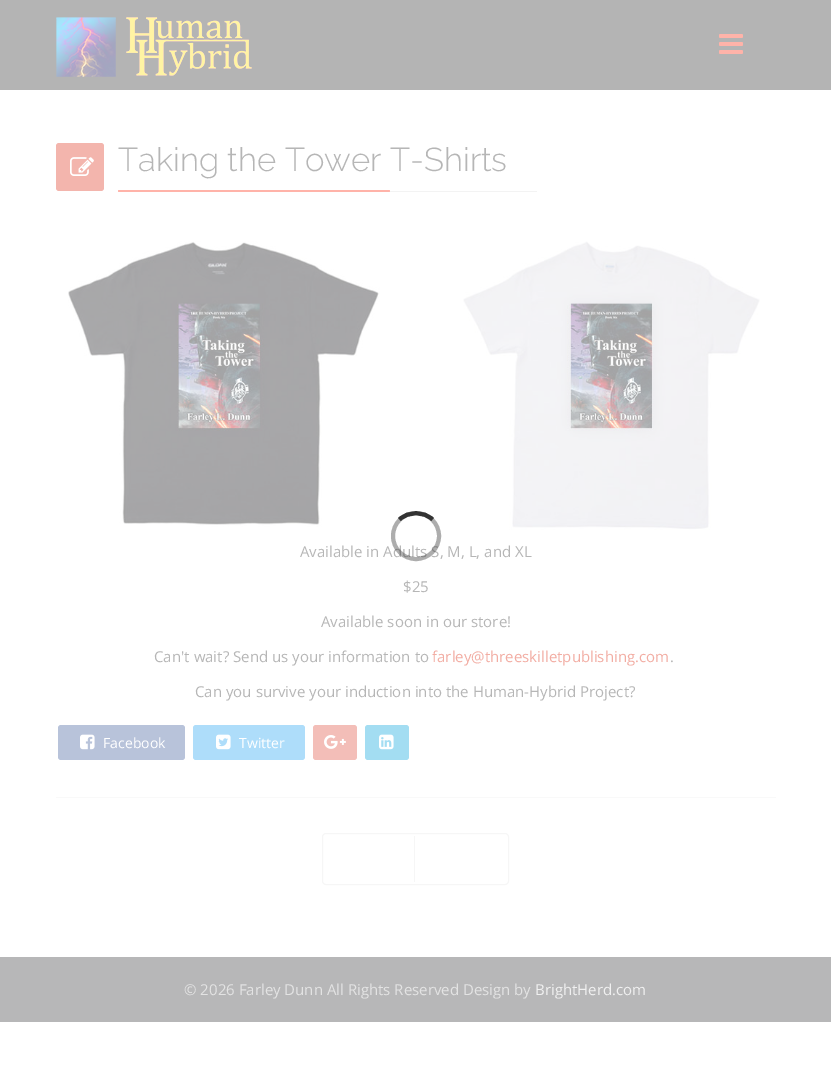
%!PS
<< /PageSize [831 1076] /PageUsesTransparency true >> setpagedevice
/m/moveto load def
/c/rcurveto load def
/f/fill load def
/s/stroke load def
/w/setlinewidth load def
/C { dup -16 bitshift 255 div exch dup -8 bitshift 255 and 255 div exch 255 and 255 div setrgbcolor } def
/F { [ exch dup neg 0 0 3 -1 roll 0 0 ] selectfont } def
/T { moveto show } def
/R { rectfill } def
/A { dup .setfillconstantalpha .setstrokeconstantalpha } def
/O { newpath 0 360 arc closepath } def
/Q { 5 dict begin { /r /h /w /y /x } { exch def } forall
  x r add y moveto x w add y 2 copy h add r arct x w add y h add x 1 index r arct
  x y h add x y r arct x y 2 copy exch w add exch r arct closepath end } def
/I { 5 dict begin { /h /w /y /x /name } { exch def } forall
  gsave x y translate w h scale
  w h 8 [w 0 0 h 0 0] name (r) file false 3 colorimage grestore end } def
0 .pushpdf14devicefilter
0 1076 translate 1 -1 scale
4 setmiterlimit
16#FFFFFF C
0 0 831 1076 R
16#B4B4B4 C
0 0 831 90 R
(1.rgb) 56 17 196 60 I
(2.rgb) 719 34 24 20 I
16#F3B5AD C
56 143 48 48 3 Q f
(3.rgb) 70 157 24 19 I
16#F3F3F3 C
118 191 419 1 R
/Raleway-Light 33 F
16#B6B6B6 C
(Taking the Tower T-Shirts) 118 171 T
16#FFB3A9 C
118 190 272 2 1 Q f
(4.rgb) 68 241 312 286 I
(5.rgb) 463 241 297 289 I
/OpenSans-Regular 15 F
16#B6B6B6 C
(Available in Adults S, M, L, and XL) 300 557 T
($25) 403 592 T
(Available soon in our store!) 321 627 T
(Can't wait? Send us your information to) 154 662 T
16#F2ADA3 C
(farley@threeskilletpublishing.com) 432 662 T
16#B6B6B6 C
(.) 670 662 T
(Can you survive your induction into the Human-Hybrid Project?) 195 697 T
16#B8C3DA C
58 725 127 35 3 Q f
(6.rgb) 80 734 15 16 I
/OpenSans-Regular 14 F
16#FFFFFF C
(Facebook) 103 748 T
16#AEDDFA C
193 725 112 35 3 Q f
(7.rgb) 216 734 15 16 I
16#FFFFFF C
(Twitter) 239 748 T
16#F3BEB8 C
313 725 44 35 3 Q f
(8.rgb) 324 735 22 14 I
16#A3DDF2 C
365 725 44 35 3 Q f
(9.rgb) 379 734 15 16 I
16#F9F9F9 C
56 797 720 1 R
16#F6F6F6 C
322.5 833.5 186 51 3.5 Q s
414 836 1 46 R
0.4 A
16#333333 C
4 w
416 536 23 O s
1 A
399.5 519.5 m 9 -8.5 24 -8.5 33 0 c s
16#B7B7B8 C
0 957 831 65 R
/OpenSans-Regular 15 F
16#E3E3E3 C
(© 2026 Farley Dunn All Rights Reserved Design by) 184 995 T
16#F0F0F0 C
(BrightHerd.com) 535 995 T
.poppdf14devicefilter showpage
